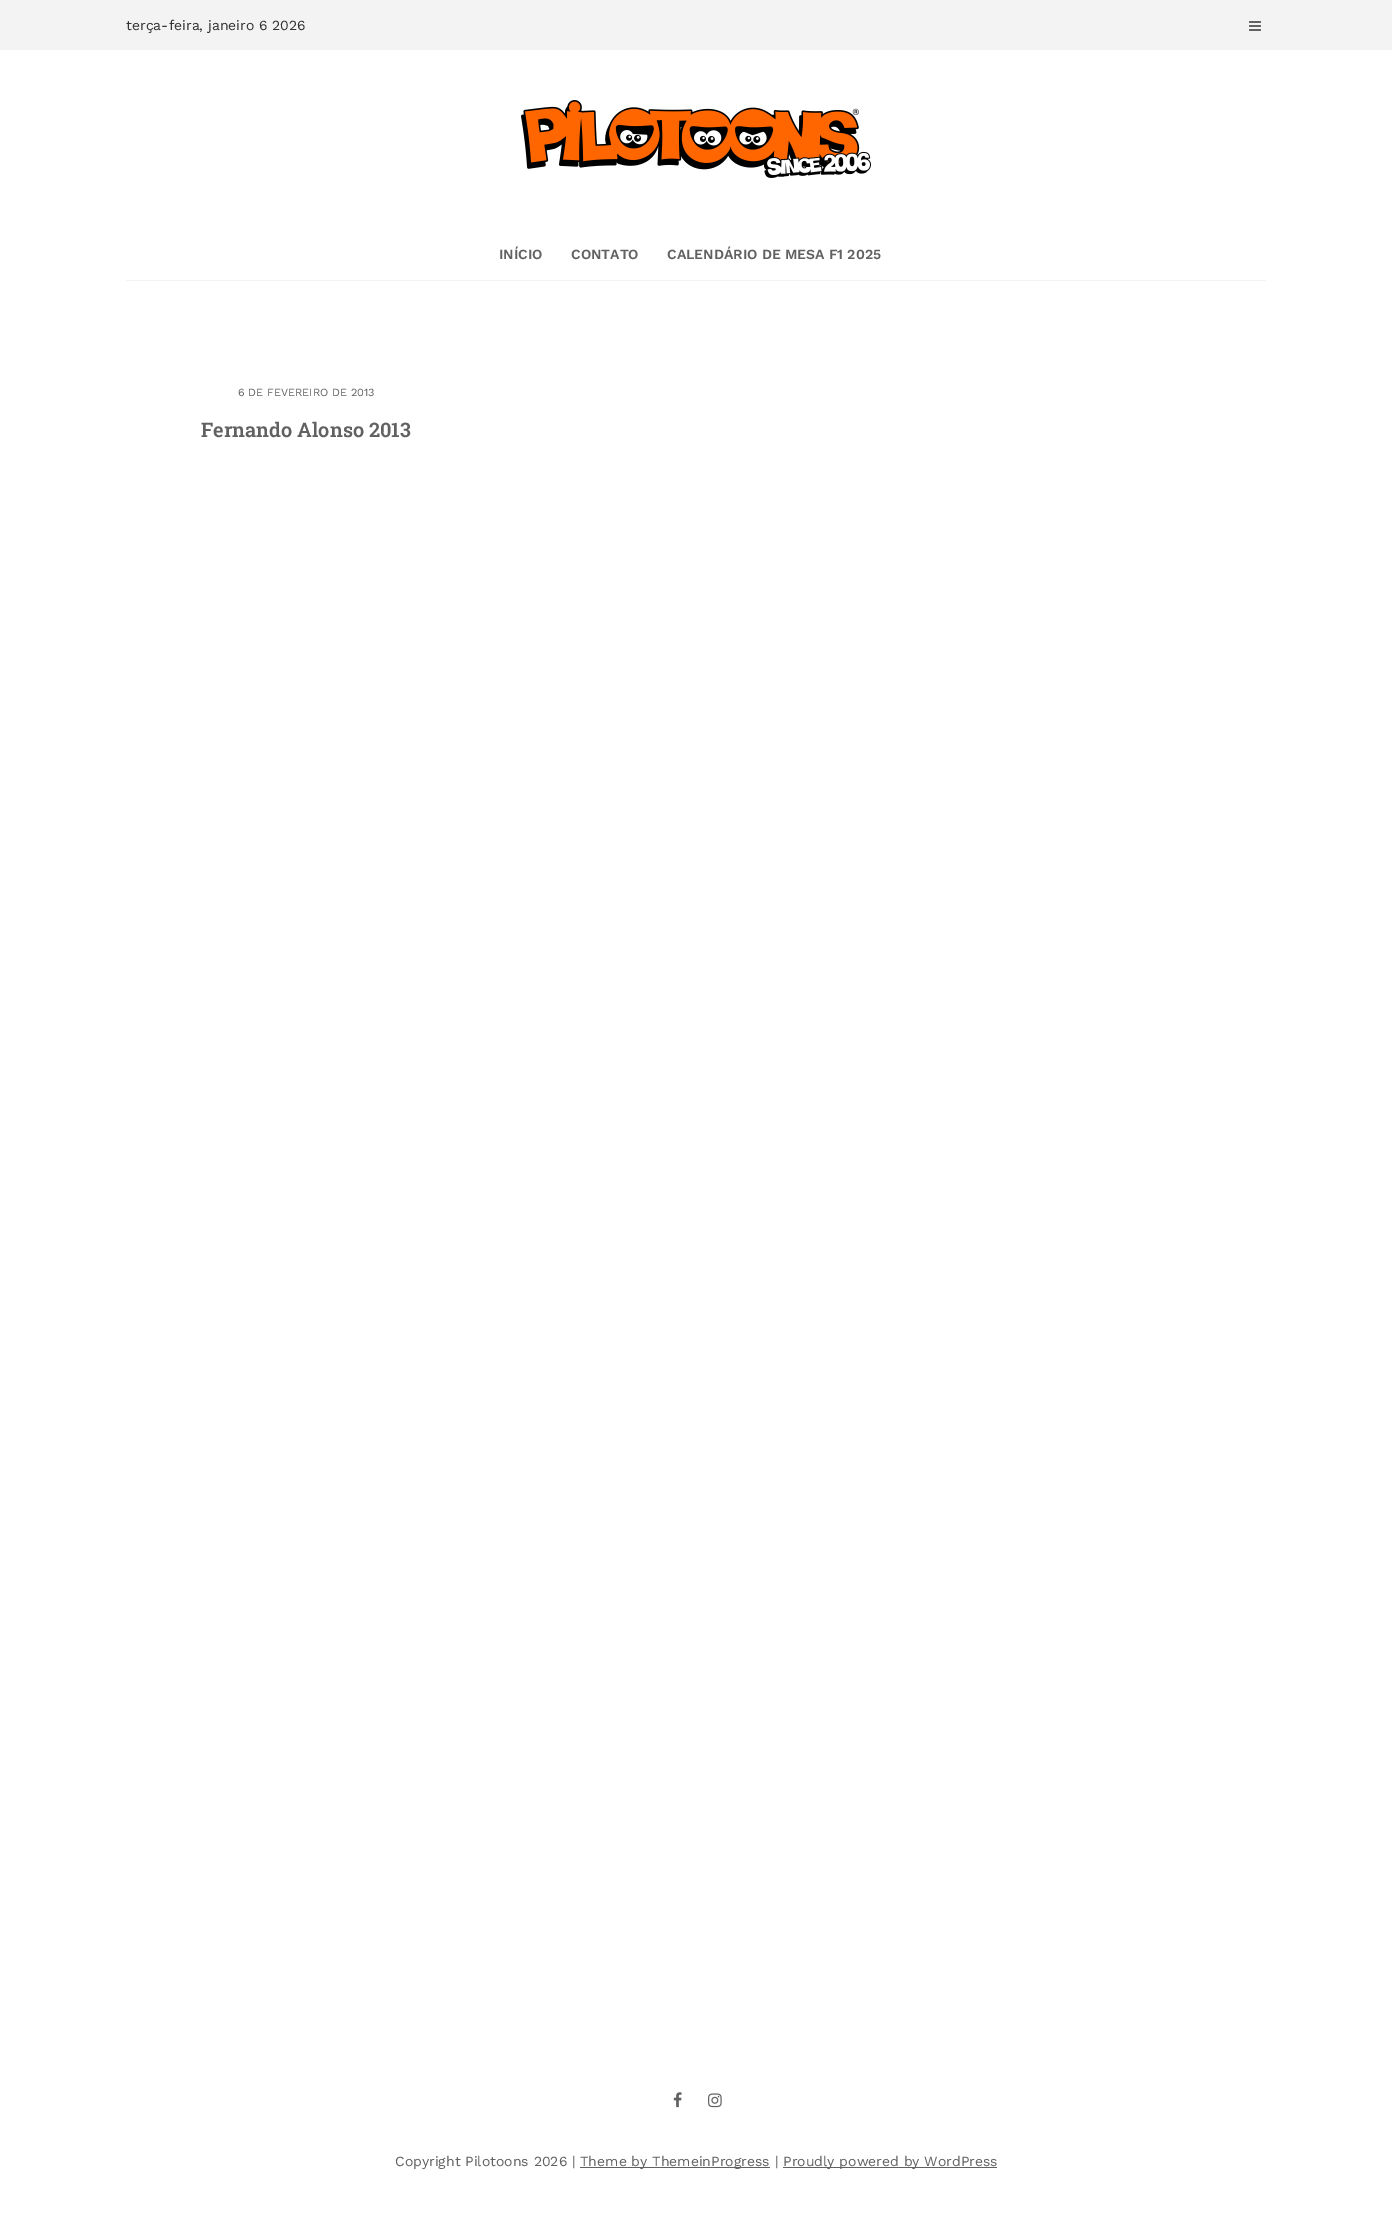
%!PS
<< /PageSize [1392 2224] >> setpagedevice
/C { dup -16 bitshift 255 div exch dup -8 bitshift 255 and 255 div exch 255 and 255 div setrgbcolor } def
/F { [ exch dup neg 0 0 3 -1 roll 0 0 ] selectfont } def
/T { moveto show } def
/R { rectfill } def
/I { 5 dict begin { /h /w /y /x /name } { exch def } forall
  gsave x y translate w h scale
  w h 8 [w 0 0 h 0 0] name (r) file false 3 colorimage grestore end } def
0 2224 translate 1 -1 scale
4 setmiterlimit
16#FFFFFF C
0 0 1392 2224 R
16#F3F3F3 C
0 0 1392 50 R
/WorkSans-Regular 14 F
16#333333 C
(terça-feira, janeiro 6 2026) 126 30 T
(1.rgb) 1249 21 12 10 I
(2.rgb) 521 100 350 78 I
/WorkSans-SemiBold 14 F
16#616161 C
(INÍCIO) 499 259 T
(CONTATO) 571 259 T
(CALENDÁRIO DE MESA F1 2025) 667 259 T
16#F3F3F3 C
126 280 1140 1 R
/WorkSans-Regular 11 F
16#616161 C
(6 DE FEVEREIRO DE 2013) 238 396 T
/RobotoSlab-SemiBold 20 F
(Fernando Alonso 2013) 201 437 T
(3.rgb) 673 2092 9 16 I
(4.rgb) 708 2093 14 15 I
/WorkSans-Regular 14 F
(Copyright Pilotoons 2026 |) 395 2166 T
580 2167 190 1 R
(Theme by ThemeinProgress |) 580 2166 T
783 2167 214 1 R
(Proudly powered by WordPress) 783 2166 T
showpage
